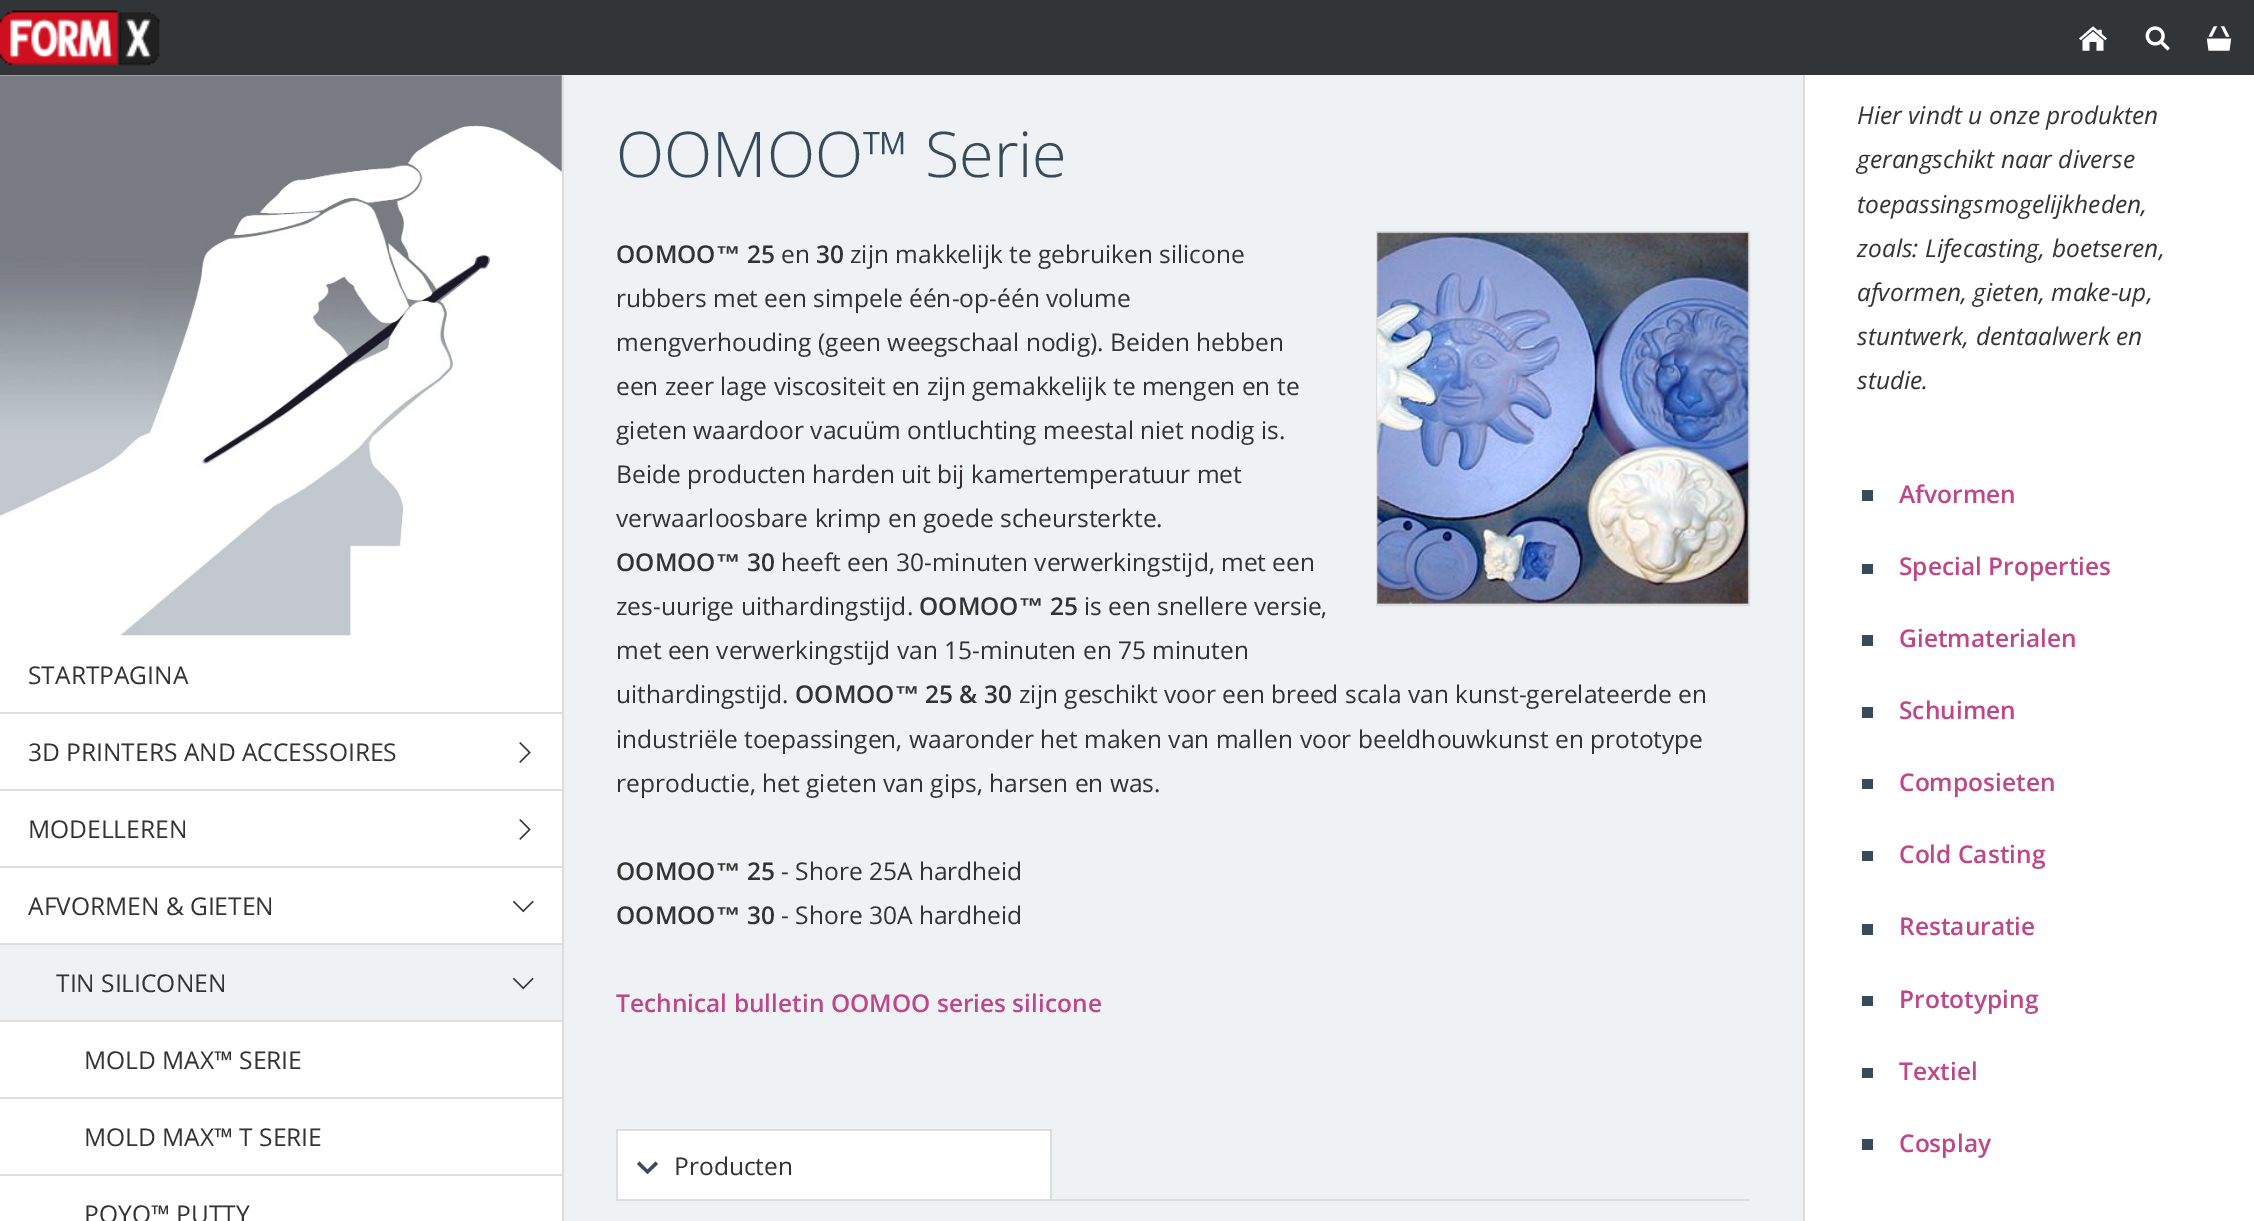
%!PS
<< /PageSize [2254 1221] >> setpagedevice
/m/moveto load def
/l/rlineto load def
/z/closepath load def
/f/fill load def
/w/setlinewidth load def
/C { dup -16 bitshift 255 div exch dup -8 bitshift 255 and 255 div exch 255 and 255 div setrgbcolor } def
/F { [ exch dup neg 0 0 3 -1 roll 0 0 ] selectfont } def
/T { moveto show } def
/R { rectfill } def
/I { 5 dict begin { /h /w /y /x /name } { exch def } forall
  gsave x y translate w h scale
  w h 8 [w 0 0 h 0 0] name (r) file false 3 colorimage grestore end } def
0 1221 translate 1 -1 scale
4 setmiterlimit
16#323538 C
0 0 2254 1221 R
(1.rgb) 0 10 160 56 I
(2.rgb) 2079 26 28 25 I
(3.rgb) 2145 26 25 25 I
(4.rgb) 2206 26 26 25 I
16#FFFFFF C
0 75 562 868 R
16#DDDDDD C
562 75 2 1146 R
(5.rgb) 0 75 562 561 I
0 712 562 2 R
/OpenSans-Regular 24.5 F
16#333333 C
(STARTPAGINA) 28 684 T
16#DDDDDD C
0 789 562 2 R
16#333333 C
(3D PRINTERS AND ACCESSOIRES) 28 761 T
(6.rgb) 519 742 12 21 I
16#DDDDDD C
0 866 562 2 R
16#333333 C
(MODELLEREN) 28 838 T
(6.rgb) 519 819 12 21 I
16#DDDDDD C
0 943 562 2 R
16#333333 C
(AFVORMEN & GIETEN) 28 915 T
(7.rgb) 512 900 22 13 I
16#EFF2F4 C
0 945 562 75 R
16#DDDDDD C
0 1020 562 2 R
16#333333 C
(TIN SILICONEN) 56 992 T
(8.rgb) 512 977 22 13 I
16#FFFFFF C
0 1022 562 75 R
16#DDDDDD C
0 1097 562 2 R
16#333333 C
(MOLD MAX™ SERIE) 84 1069 T
16#FFFFFF C
0 1099 562 75 R
16#DDDDDD C
0 1174 562 2 R
16#333333 C
(MOLD MAX™ T SERIE) 84 1146 T
16#FFFFFF C
0 1176 562 45 R
16#333333 C
(POYO™ PUTTY) 84 1223 T
16#EFF2F4 C
564 75 1239 1146 R
/OpenSans-Light 63 F
16#374B5B C
(OOMOO™ Serie) 616 177 T
16#DDDDDD C
2 w
1377 232 372 373 rectstroke
(9.rgb) 1377 232 372 372 I
/OpenSans-SemiBold 24.5 F
16#333333 C
(OOMOO) 616 263 T
/LiberationSans-Bold 24.5 F
(™) 716 263 T
/OpenSans-SemiBold 24.5 F
(25) 747 263 T
/OpenSans-Regular 24.5 F
(en) 781 263 T
/OpenSans-SemiBold 24.5 F
(30) 816 263 T
/OpenSans-Regular 24.5 F
(zijn makkelijk te gebruiken silicone) 850 263 T
(rubbers met een simpele één-op-één volume) 616 307 T
(mengverhouding \(geen weegschaal nodig\). Beiden hebben) 616 351 T
(een zeer lage viscositeit en zijn gemakkelijk te mengen en te) 616 395 T
(gieten waardoor vacuüm ontluchting meestal niet nodig is.) 616 439 T
(Beide producten harden uit bij kamertemperatuur met) 616 483 T
(verwaarloosbare krimp en goede scheursterkte.) 616 527 T
/OpenSans-SemiBold 24.5 F
(OOMOO) 616 571 T
/LiberationSans-Bold 24.5 F
(™) 716 571 T
/OpenSans-SemiBold 24.5 F
(30) 747 571 T
/OpenSans-Regular 24.5 F
(heeft een 30-minuten verwerkingstijd, met een) 781 571 T
(zes-uurige uithardingstijd.) 616 615 T
/OpenSans-SemiBold 24.5 F
(OOMOO) 919 615 T
/LiberationSans-Bold 24.5 F
(™) 1019 615 T
/OpenSans-SemiBold 24.5 F
(25) 1050 615 T
/OpenSans-Regular 24.5 F
(is een snellere versie,) 1084 615 T
(met een verwerkingstijd van 15-minuten en 75 minuten) 616 659 T
(uithardingstijd.) 616 703 T
/OpenSans-SemiBold 24.5 F
(OOMOO) 795 703 T
/LiberationSans-Bold 24.5 F
(™) 895 703 T
/OpenSans-SemiBold 24.5 F
(25 & 30) 925 703 T
/OpenSans-Regular 24.5 F
(zijn geschikt voor een breed scala van kunst-gerelateerde en) 1019 703 T
(industriële toepassingen, waaronder het maken van mallen voor beeldhouwkunst en prototype) 616 748 T
(reproductie, het gieten van gips, harsen en was.) 616 792 T
/OpenSans-SemiBold 24.5 F
(OOMOO) 616 880 T
/LiberationSans-Bold 24.5 F
(™) 716 880 T
/OpenSans-SemiBold 24.5 F
(25) 747 880 T
/OpenSans-Regular 24.5 F
(- Shore 25A hardheid) 781 880 T
/OpenSans-SemiBold 24.5 F
(OOMOO) 616 924 T
/LiberationSans-Bold 24.5 F
(™) 716 924 T
/OpenSans-SemiBold 24.5 F
(30) 747 924 T
/OpenSans-Regular 24.5 F
(- Shore 30A hardheid) 781 924 T
/OpenSans-SemiBold 24.5 F
16#BF4688 C
(Technical bulletin OOMOO series silicone) 616 1012 T
16#DDDDDD C
616 1199 1134 2 R
16#FFFFFF C
618 1131 432 68 R
16#374B5B C
639.5 1161.5 m 8 8 l 8 -8 l 2.5 2.5 l -10.5 10 l -10.5 -10 l z f
16#DDDDDD C
616 1129 436 2 R
1050 1129 2 70 R
616 1129 2 70 R
/OpenSans-Regular 24.5 F
16#333333 C
(Producten) 674 1175 T
16#FFFFFF C
1805 75 449 1146 R
16#DDDDDD C
1803 75 2 1146 R
/OpenSans-Italic 24.5 F
16#333333 C
(Hier vindt u onze produkten) 1857 124 T
(gerangschikt naar diverse) 1857 168 T
(toepassingsmogelijkheden,) 1857 213 T
(zoals: Lifecasting, boetseren,) 1857 257 T
(afvormen, gieten, make-up,) 1857 301 T
(stuntwerk, dentaalwerk en) 1857 345 T
(studie.) 1857 389 T
16#374B5B C
1862 490 11 11 R
/OpenSans-SemiBold 24.5 F
16#BF4688 C
(Afvormen) 1899 503 T
16#374B5B C
1862 564 11 10 R
16#BF4688 C
(Special Properties) 1899 575 T
16#374B5B C
1862 635 11 11 R
16#BF4688 C
(Gietmaterialen) 1899 647 T
16#374B5B C
1862 707 11 11 R
16#BF4688 C
(Schuimen) 1899 719 T
16#374B5B C
1862 779 11 10 R
16#BF4688 C
(Composieten) 1899 791 T
16#374B5B C
1862 851 11 10 R
16#BF4688 C
(Cold Casting) 1899 863 T
16#374B5B C
1862 924 11 11 R
16#BF4688 C
(Restauratie) 1899 935 T
16#374B5B C
1862 996 11 10 R
16#BF4688 C
(Prototyping) 1899 1008 T
16#374B5B C
1862 1068 11 10 R
16#BF4688 C
(Textiel) 1899 1080 T
16#374B5B C
1862 1139 11 11 R
16#BF4688 C
(Cosplay) 1899 1152 T
showpage
